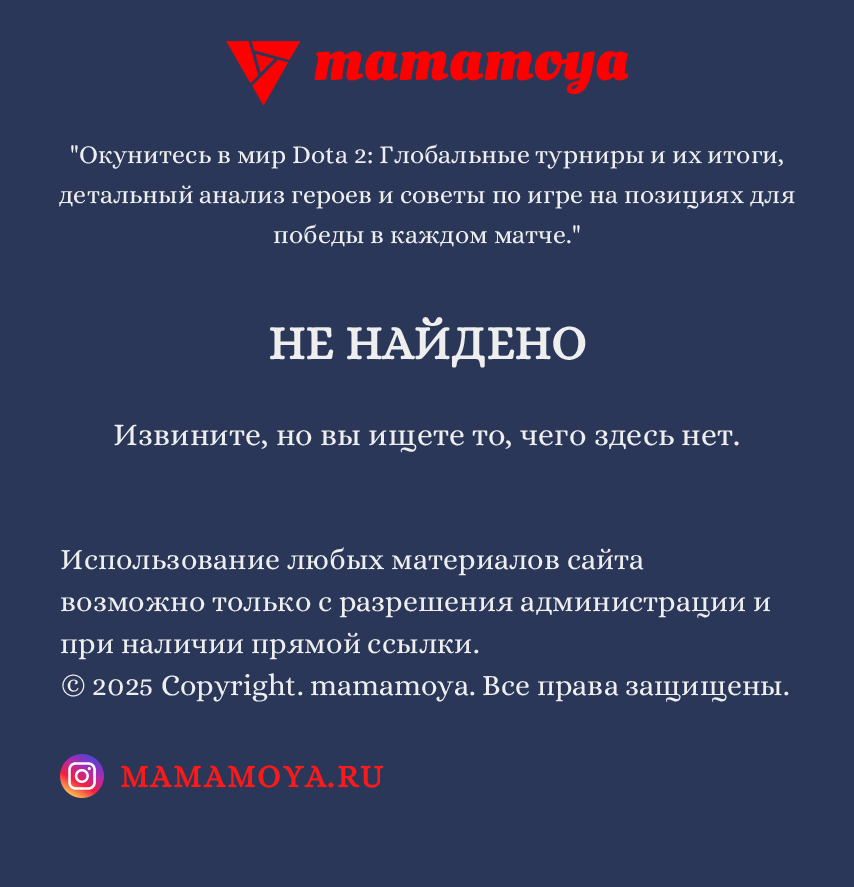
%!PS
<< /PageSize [854 887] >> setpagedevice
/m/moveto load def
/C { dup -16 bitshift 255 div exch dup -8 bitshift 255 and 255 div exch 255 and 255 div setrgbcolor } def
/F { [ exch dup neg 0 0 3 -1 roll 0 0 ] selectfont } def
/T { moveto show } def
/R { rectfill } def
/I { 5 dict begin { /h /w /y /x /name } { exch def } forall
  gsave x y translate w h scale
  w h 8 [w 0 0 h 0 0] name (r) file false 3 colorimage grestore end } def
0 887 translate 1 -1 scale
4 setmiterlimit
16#2A3759 C
0 0 854 887 R
(1.rgb) 226 41 402 65 I
/Alice-Regular 26 F
16#EEEEEE C
("Окунитесь в мир Dota 2: Глобальные турниры и их итоги,) 70 163 T
(детальный анализ героев и советы по игре на позициях для) 59 203 T
(победы в каждом матче.") 273 243 T
/Alice-Bold 48 F
(НЕ НАЙДЕНО) 268 359 T
/Alice-Regular 32 F
(Извините, но вы ищете то, чего здесь нет.) 113 445 T
/Alice-Regular 30 F
(Использование любых материалов сайта) 60 569 T
(возможно только с разрешения администрации и) 60 611 T
(при наличии прямой ссылки.) 60 653 T
(© 2025 Copyright. mamamoya. Все права защищены.) 60 695 T
(2.rgb) 60 754 44 44 I
/Alice-Bold 32 F
16#FA1A1A C
120 787 m 2 0 (MAMAMOYA.RU) ashow
showpage
